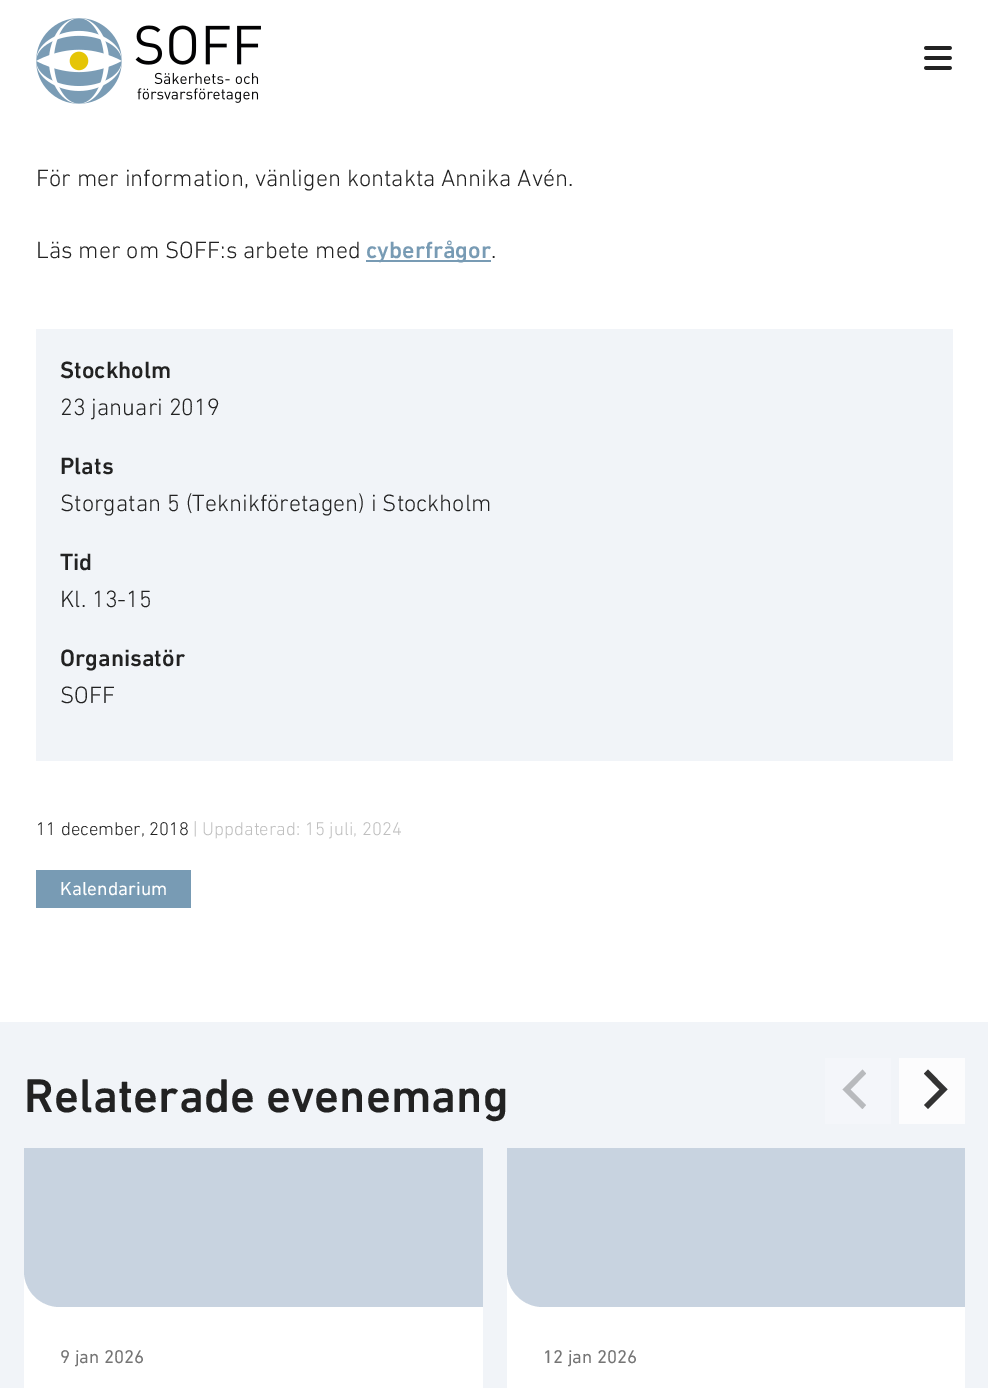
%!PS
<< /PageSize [988 1388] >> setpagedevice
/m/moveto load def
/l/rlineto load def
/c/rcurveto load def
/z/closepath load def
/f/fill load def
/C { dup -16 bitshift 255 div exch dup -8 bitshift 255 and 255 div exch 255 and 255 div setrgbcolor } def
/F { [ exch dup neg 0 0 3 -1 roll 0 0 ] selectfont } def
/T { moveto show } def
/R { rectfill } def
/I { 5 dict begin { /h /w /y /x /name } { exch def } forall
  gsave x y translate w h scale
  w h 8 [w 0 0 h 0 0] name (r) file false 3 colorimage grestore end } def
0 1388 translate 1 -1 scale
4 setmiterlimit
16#F1F4F8 C
0 0 988 1388 R
16#FFFFFF C
0 0 988 1022 R
(1.rgb) 36 18 225 86 I
(2.rgb) 924 46 28 24 I
/DINNext-Light 24 F
16#222222 C
(För mer information, vänligen kontakta Annika Avén.) 36 186 T
(Läs mer om SOFF:s arbete med) 36 258 T
16#789BB4 C
366 260 125 2 R
/DINNext-Medium 24 F
(cyberfrågor) 366 258 T
/DINNext-Light 24 F
16#222222 C
(.) 491 258 T
16#F1F4F8 C
36 329 917 432 R
/DINNext-Medium 24 F
16#222222 C
(Stockholm) 60 378 T
/DINNext-Light 24 F
(23 januari 2019) 60 415 T
/DINNext-Medium 24 F
(Plats) 60 474 T
/DINNext-Light 24 F
(Storgatan 5 \(Teknikföretagen\) i Stockholm) 60 511 T
/DINNext-Medium 24 F
(Tid) 60 570 T
/DINNext-Light 24 F
(Kl. 13-15) 60 607 T
/DINNext-Medium 24 F
(Organisatör) 60 666 T
/DINNext-Light 24 F
(SOFF) 60 703 T
/DINNext-Light 18.75 F
(11 december, 2018) 36 835 T
16#BFBFBF C
(| Uppdaterad: 15 juli, 2024) 193 835 T
16#789BB4 C
36 870 155 38 R
/DINNext-Regular 19.25 F
16#FFFFFF C
(Kalendarium) 60 895 T
/DINNext-Medium 48 F
16#222222 C
(Relaterade evenemang) 24 1112 T
16#F4F6FA C
825 1058 66 66 R
16#B8BABD C
842.5 1089.5 m 20 19.5 l 3.5 -4 l -15.5 -15.5 l 15.5 -16 l -3.5 -4 l z f
16#FCFCFD C
899 1058 66 66 R
16#333333 C
947.5 1089.5 m -19.5 -20 l -4 4 l 15.5 16 l -15.5 15.5 l 4 4 l z f
16#FFFFFF C
24 1271 459 117 R
16#C8D3E0 C
24 1148 m 459 0 l 0 159 l -423 0 l -20 0 -36 -16 -36 -36 c z f
/DINNext-Regular 18.75 F
16#757575 C
(9 jan 2026) 60 1363 T
16#FFFFFF C
507 1271 458 117 R
16#C8D3E0 C
507 1148 m 458 0 l 0 159 l -422 0 l -20 0 -36 -16 -36 -36 c z f
16#757575 C
(12 jan 2026) 543 1363 T
showpage
